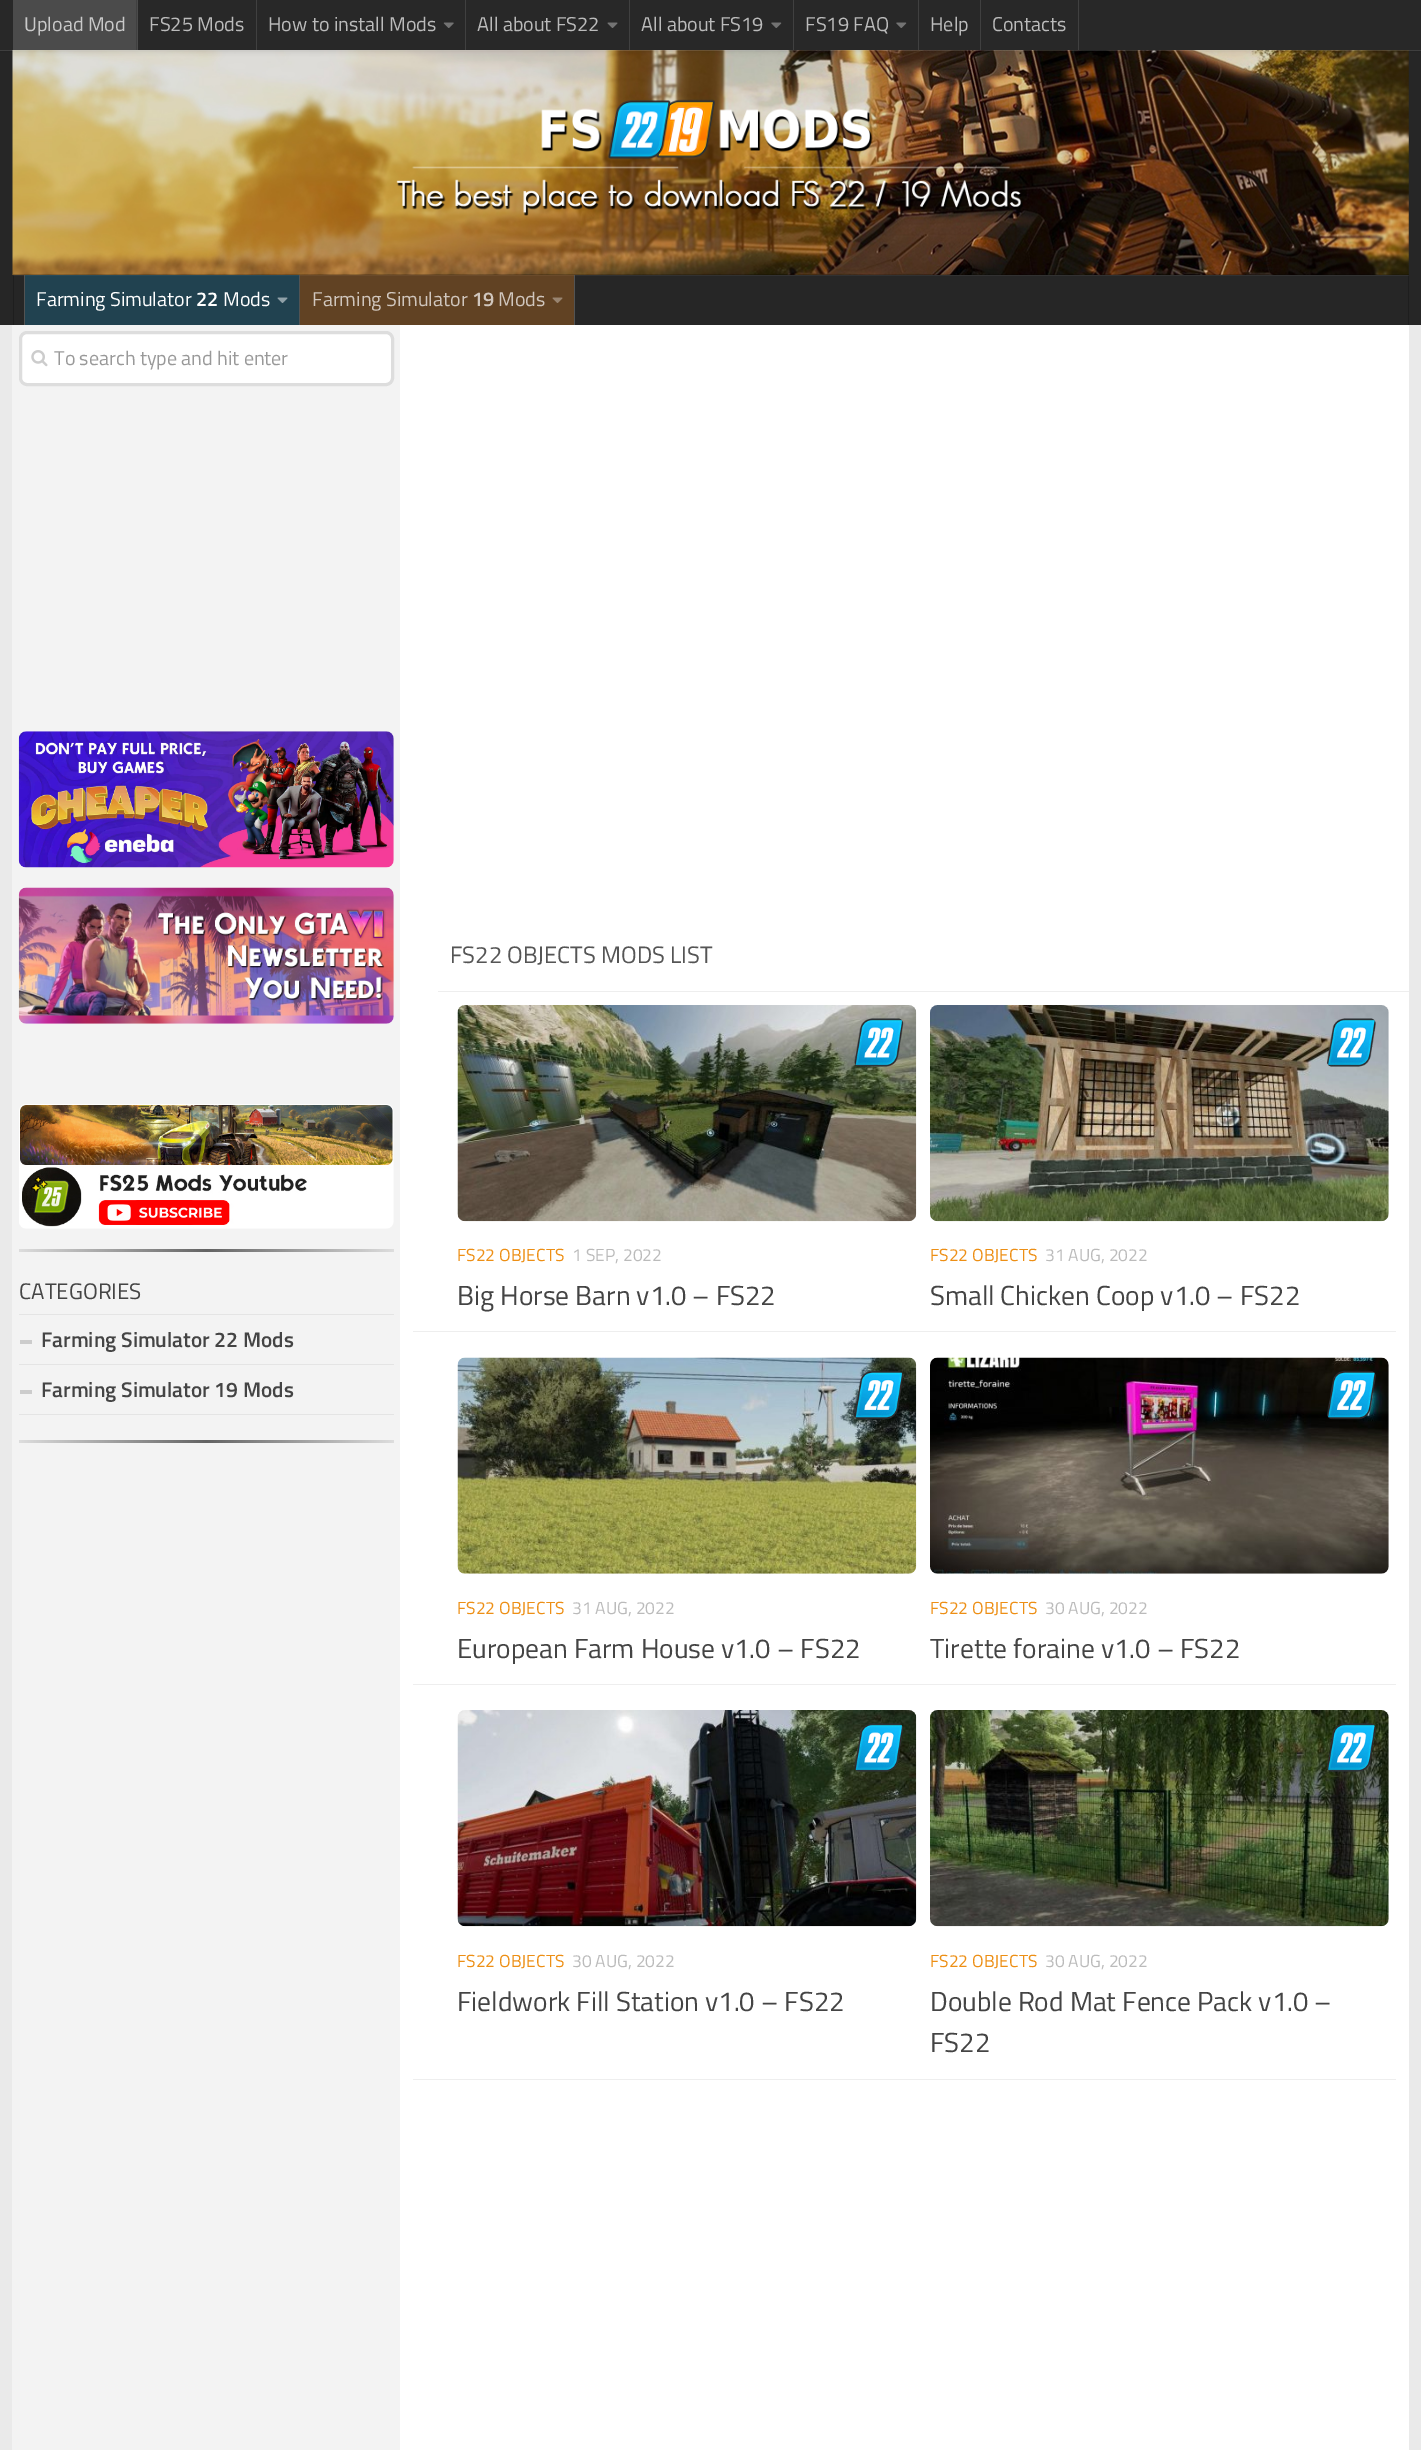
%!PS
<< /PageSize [1421 2450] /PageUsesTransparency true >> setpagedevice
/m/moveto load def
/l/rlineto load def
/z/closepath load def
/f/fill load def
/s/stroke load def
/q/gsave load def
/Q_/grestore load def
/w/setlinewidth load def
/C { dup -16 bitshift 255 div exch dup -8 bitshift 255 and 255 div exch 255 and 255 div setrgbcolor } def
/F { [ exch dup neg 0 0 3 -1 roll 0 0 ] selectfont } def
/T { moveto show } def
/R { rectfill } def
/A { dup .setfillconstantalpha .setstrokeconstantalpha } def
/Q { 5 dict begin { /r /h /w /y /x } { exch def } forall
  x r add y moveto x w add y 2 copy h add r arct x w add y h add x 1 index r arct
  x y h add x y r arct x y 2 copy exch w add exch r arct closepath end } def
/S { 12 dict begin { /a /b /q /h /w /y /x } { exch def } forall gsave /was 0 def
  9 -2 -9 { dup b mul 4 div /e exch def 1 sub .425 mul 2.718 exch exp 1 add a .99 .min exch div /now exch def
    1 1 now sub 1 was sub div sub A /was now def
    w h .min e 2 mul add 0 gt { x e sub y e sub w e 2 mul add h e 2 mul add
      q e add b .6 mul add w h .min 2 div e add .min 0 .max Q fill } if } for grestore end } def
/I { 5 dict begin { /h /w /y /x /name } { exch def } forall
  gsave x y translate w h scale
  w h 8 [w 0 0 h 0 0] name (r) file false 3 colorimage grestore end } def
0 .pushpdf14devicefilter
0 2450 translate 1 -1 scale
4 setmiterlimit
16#EAEAEA C
0 0 1421 2450 R
16#262626 C
0 50 1421 275 R
16#313131 C
13 275 1396 1 R
(4.rgb) 12 50 1397 225 I
0.15 A
16#FFFFFF C
0 50 1421 1 R
1 A
16#000000 C
0 0 1421 50 0 3 .2 S
16#282828 C
0 0 1421 50 R
16#4B4B4B C
13 0 125 50 R
16#404040 C
136 0 1 50 R
/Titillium-Regular 20 F
16#C9C9C9 C
(Upload Mod) 24 31 T
16#404040 C
256 0 1 50 R
16#BBBBBB C
(FS25 Mods) 149 31 T
16#404040 C
465 0 1 50 R
16#BBBBBB C
(How to install Mods) 268 31 T
(1.rgb) 443 22 11 6 I
16#404040 C
629 0 1 50 R
16#BBBBBB C
(All about FS22) 477 31 T
(2.rgb) 607 22 11 6 I
16#404040 C
793 0 1 50 R
16#BBBBBB C
(All about FS19) 641 31 T
(3.rgb) 771 22 11 6 I
16#404040 C
918 0 1 50 R
16#BBBBBB C
(FS19 FAQ) 805 31 T
(3.rgb) 896 22 11 6 I
16#404040 C
980 0 1 50 R
16#BBBBBB C
(Help) 930 31 T
16#404040 C
1078 0 1 50 R
16#BBBBBB C
(Contacts) 992 31 T
(5.rgb) 396 99 627 117 I
0.2 A
16#000000 C
13 274 m 0 1 l 1396 0 l 0 49 l 0 -50 l z f
1 A
16#1E1E1E C
1408 275 1 50 R
16#292929 C
1408 275 1 1 R
16#1E1E1E C
13 275 1 50 R
16#292929 C
13 275 1 1 R
16#525353 C
24 275 1 50 R
0.26 A
16#1291C9 C
25 275 274 50 R
1 A
16#525353 C
299 275 1 50 R
16#FFFFFF C
(Farming Simulator) 36 306 T
/Titillium-SemiBold 20 F
(22) 196 306 T
/Titillium-Regular 20 F
(Mods) 223 306 T
(6.rgb) 277 297 11 6 I
0.3 A
16#EB841D C
300 275 274 50 R
1 A
16#525353 C
574 275 1 50 R
16#D0C6BD C
(Farming Simulator) 312 306 T
/Titillium-SemiBold 20 F
(19) 472 306 T
/Titillium-Regular 20 F
(Mods) 498 306 T
(7.rgb) 552 297 11 6 I
16#FFFFFF C
400 325 1009 2125 R
16#F3F3F3 C
12 325 388 2125 R
16#FFFFFF C
20.5 332.5 372 52 6.5 Q q f Q_
16#DDDDDD C
3 w
s
(8.rgb) 31 350 17 17 I
16#999999 C
(To search type and hit enter) 54 365 T
(9.rgb) 18 731 376 137 I
(10.rgb) 18 887 376 137 I
(11.rgb) 19 1104 375 125 I
q 19 1249 m 375 0 l 0 3 l -375 0 l z clip newpath
<< /ShadingType 2 /ColorSpace /DeviceRGB /Coords [19 1250 394 1250] /Extend [true true] /Function << /FunctionType 3 /Domain [0 1] /Functions [<< /FunctionType 2 /Domain [0 1] /C0 [.867 .867 .867] /C1 [.388 .388 .388] /N 1 >> << /FunctionType 2 /Domain [0 1] /C0 [.388 .388 .388] /C1 [.867 .867 .867] /N 1 >>] /Bounds [.5] /Encode [0 1 0 1] >> >> shfill Q_
/Titillium-Regular 22.5 F
16#444444 C
(CATEGORIES) 19 1299 T
16#E4E4E4 C
19 1414 375 1 R
19 1314 375 1 R
16#CCCCCC C
20 1340 12 4 R
/Titillium-SemiBold 21.25 F
16#444444 C
(Farming Simulator 22 Mods) 41 1347 T
16#E4E4E4 C
19 1364 375 1 R
16#CCCCCC C
20 1390 12 4 R
16#444444 C
(Farming Simulator 19 Mods) 41 1397 T
q 19 1440 m 375 0 l 0 3 l -375 0 l z clip newpath
<< /ShadingType 2 /ColorSpace /DeviceRGB /Coords [19 1441 394 1441] /Extend [true true] /Function << /FunctionType 3 /Domain [0 1] /Functions [<< /FunctionType 2 /Domain [0 1] /C0 [.867 .867 .867] /C1 [.388 .388 .388] /N 1 >> << /FunctionType 2 /Domain [0 1] /C0 [.388 .388 .388] /C1 [.867 .867 .867] /N 1 >>] /Bounds [.5] /Encode [0 1 0 1] >> >> shfill Q_
16#EEEEEE C
438 991 971 1 R
/Titillium-Regular 23.75 F
16#555555 C
(FS22 OBJECTS MODS LIST) 450 963 T
16#EEEEEE C
413 1331 983 1 R
(12.rgb) 457 1005 460 217 I
(13.rgb) 854 1018 50 49 I
/Titillium-Regular 17.5 F
16#ED8F15 C
(FS22 OBJECTS) 457 1261 T
16#BBBBBB C
(1 SEP, 2022) 572 1261 T
/Titillium-Regular 27.5 F
16#444444 C
(Big Horse Barn v1.0 – FS22) 457 1305 T
(14.rgb) 930 1005 459 217 I
(15.rgb) 1326 1018 50 49 I
/Titillium-Regular 17.5 F
16#ED8F15 C
(FS22 OBJECTS) 930 1261 T
16#BBBBBB C
(31 AUG, 2022) 1045 1261 T
/Titillium-Regular 27.5 F
16#444444 C
(Small Chicken Coop v1.0 – FS22) 930 1305 T
16#EEEEEE C
413 1684 983 1 R
(16.rgb) 457 1357 460 217 I
(17.rgb) 854 1370 49 50 I
/Titillium-Regular 17.5 F
16#ED8F15 C
(FS22 OBJECTS) 457 1614 T
16#BBBBBB C
(31 AUG, 2022) 572 1614 T
/Titillium-Regular 27.5 F
16#444444 C
(European Farm House v1.0 – FS22) 457 1658 T
(18.rgb) 930 1357 459 217 I
(19.rgb) 1327 1370 49 50 I
/Titillium-Regular 17.5 F
16#ED8F15 C
(FS22 OBJECTS) 930 1614 T
16#BBBBBB C
(30 AUG, 2022) 1045 1614 T
/Titillium-Regular 27.5 F
16#444444 C
(Tirette foraine v1.0 – FS22) 930 1658 T
16#EEEEEE C
413 2079 983 1 R
(20.rgb) 457 1710 460 217 I
(21.rgb) 854 1723 49 49 I
/Titillium-Regular 17.5 F
16#ED8F15 C
(FS22 OBJECTS) 457 1967 T
16#BBBBBB C
(30 AUG, 2022) 572 1967 T
/Titillium-Regular 27.5 F
16#444444 C
(Fieldwork Fill Station v1.0 – FS22) 457 2011 T
(22.rgb) 930 1710 459 217 I
(23.rgb) 1327 1723 49 49 I
/Titillium-Regular 17.5 F
16#ED8F15 C
(FS22 OBJECTS) 930 1967 T
16#BBBBBB C
(30 AUG, 2022) 1045 1967 T
/Titillium-Regular 27.5 F
16#444444 C
(Double Rod Mat Fence Pack v1.0 –) 930 2011 T
(FS22) 930 2052 T
.poppdf14devicefilter showpage
